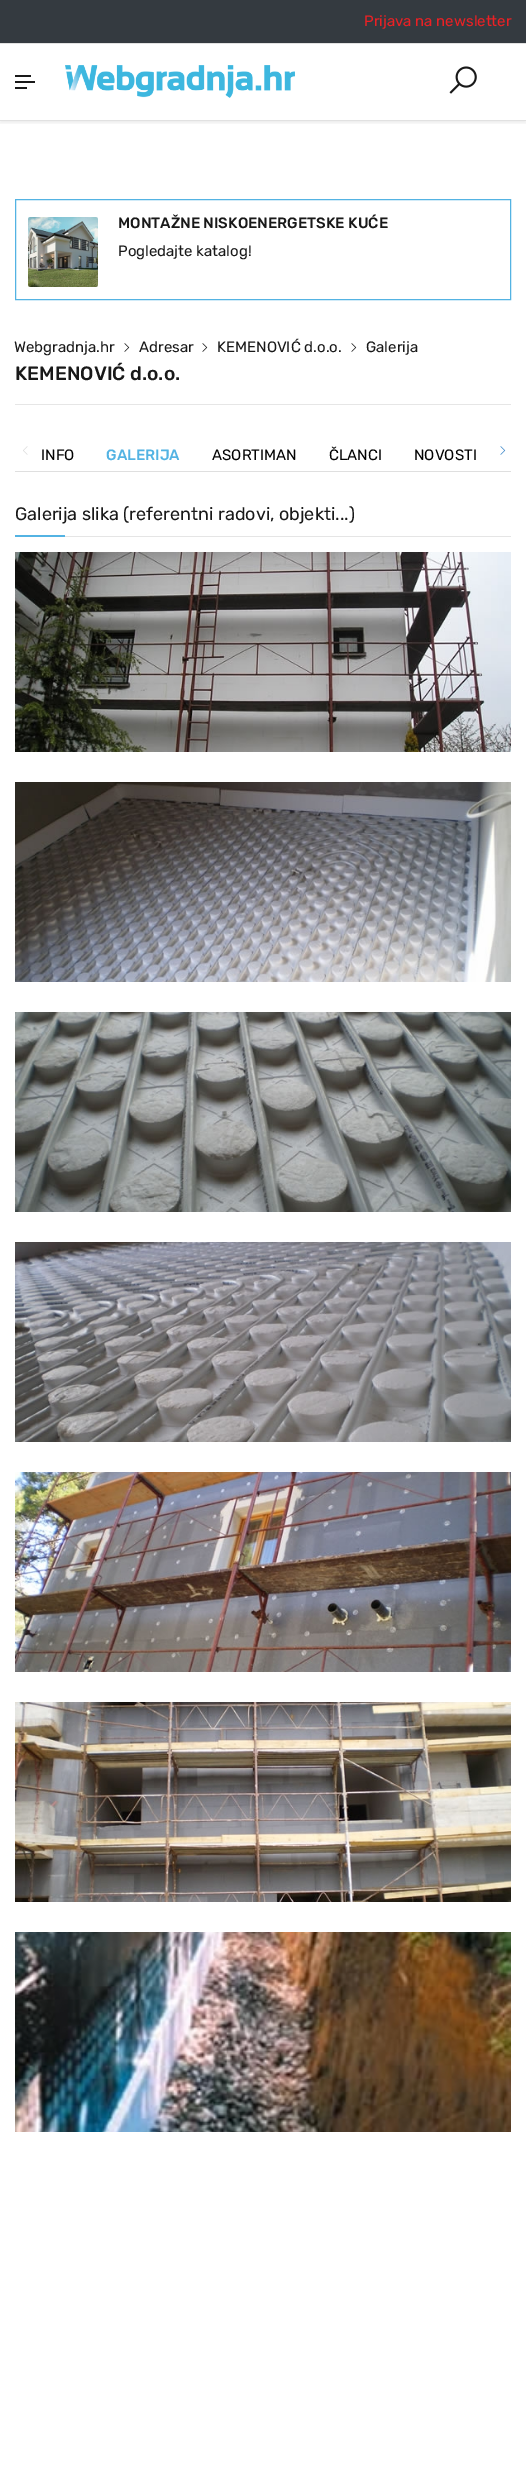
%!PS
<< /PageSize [526 2474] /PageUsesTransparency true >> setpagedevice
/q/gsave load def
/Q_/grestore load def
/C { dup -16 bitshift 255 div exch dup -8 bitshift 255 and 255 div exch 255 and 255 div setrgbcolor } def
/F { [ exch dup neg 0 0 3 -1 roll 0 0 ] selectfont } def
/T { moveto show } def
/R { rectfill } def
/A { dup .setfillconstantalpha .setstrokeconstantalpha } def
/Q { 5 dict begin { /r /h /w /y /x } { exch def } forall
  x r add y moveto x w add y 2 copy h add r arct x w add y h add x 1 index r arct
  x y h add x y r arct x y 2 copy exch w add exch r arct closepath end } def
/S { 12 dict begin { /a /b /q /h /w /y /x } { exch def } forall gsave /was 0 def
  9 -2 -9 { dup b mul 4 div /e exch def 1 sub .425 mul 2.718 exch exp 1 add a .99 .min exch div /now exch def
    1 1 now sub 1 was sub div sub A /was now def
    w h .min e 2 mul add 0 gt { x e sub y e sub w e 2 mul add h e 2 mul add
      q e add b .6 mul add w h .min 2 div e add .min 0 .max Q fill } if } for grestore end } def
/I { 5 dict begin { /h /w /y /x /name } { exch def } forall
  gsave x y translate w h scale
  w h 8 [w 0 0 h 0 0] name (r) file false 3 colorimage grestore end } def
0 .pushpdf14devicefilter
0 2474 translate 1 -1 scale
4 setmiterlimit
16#FFFFFF C
0 0 526 2474 R
16#343A40 C
0 0 526 43 R
16#E1E1E1 C
0 43 526 1 R
/Rubik-Regular 15 F
16#EC2024 C
(Prijava na newsletter) 364 26 T
q
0 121 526 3 rectclip
16#000000 C
0 46 526 77 0 2 .07 S
Q_
16#E1E1E1 C
0 120 526 1 R
16#191919 C
15 75 16 2 R
15 81 20 2 R
15 87 12 2 R
(1.rgb) 65 65 230 33 I
(2.rgb) 449 66 28 28 I
16#53B3E3 C
15.5 199.5 495 100 rectstroke
(3.rgb) 28 217 70 70 I
/Rubik-Medium 15 F
16#191919 C
(MONTAŽNE NISKOENERGETSKE KUĆE) 118 228 T
/Rubik-Regular 15 F
(Pogledajte katalog!) 118 256 T
(Webgradnja.hr) 14 352 T
(4.rgb) 124 343 6 9 I
(Adresar) 139 352 T
(4.rgb) 202 343 6 9 I
(KEMENOVIĆ d.o.o.) 217 352 T
(4.rgb) 351 343 6 9 I
(Galerija) 366 352 T
/Rubik-Medium 19.25 F
(KEMENOVIĆ d.o.o.) 15 380 T
16#E6E6E6 C
15 404 496 1 R
16#DFDFDF C
15 471 496 1 R
(5.rgb) 23 446 5 9 I
/Rubik-Regular 15 F
16#030303 C
(INFO) 41 460 T
/Rubik-Medium 15 F
16#53B3E3 C
(GALERIJA) 106 460 T
/Rubik-Regular 15 F
16#030303 C
(ASORTIMAN) 212 460 T
(ČLANCI) 329 460 T
(NOVOSTI) 414 460 T
(6.rgb) 500 446 6 9 I
16#E5E5E5 C
65 536 446 1 R
/Rubik-Regular 18 F
16#191919 C
(Galerija slika \(referentni radovi, objekti...\)) 15 520 T
16#53B3E3 C
15 535 50 2 R
(7.rgb) 15 552 496 200 I
(8.rgb) 15 782 496 200 I
(9.rgb) 15 1012 496 200 I
(10.rgb) 15 1242 496 200 I
(11.rgb) 15 1472 496 200 I
(12.rgb) 15 1702 496 200 I
(13.rgb) 15 1932 496 200 I
.poppdf14devicefilter showpage
